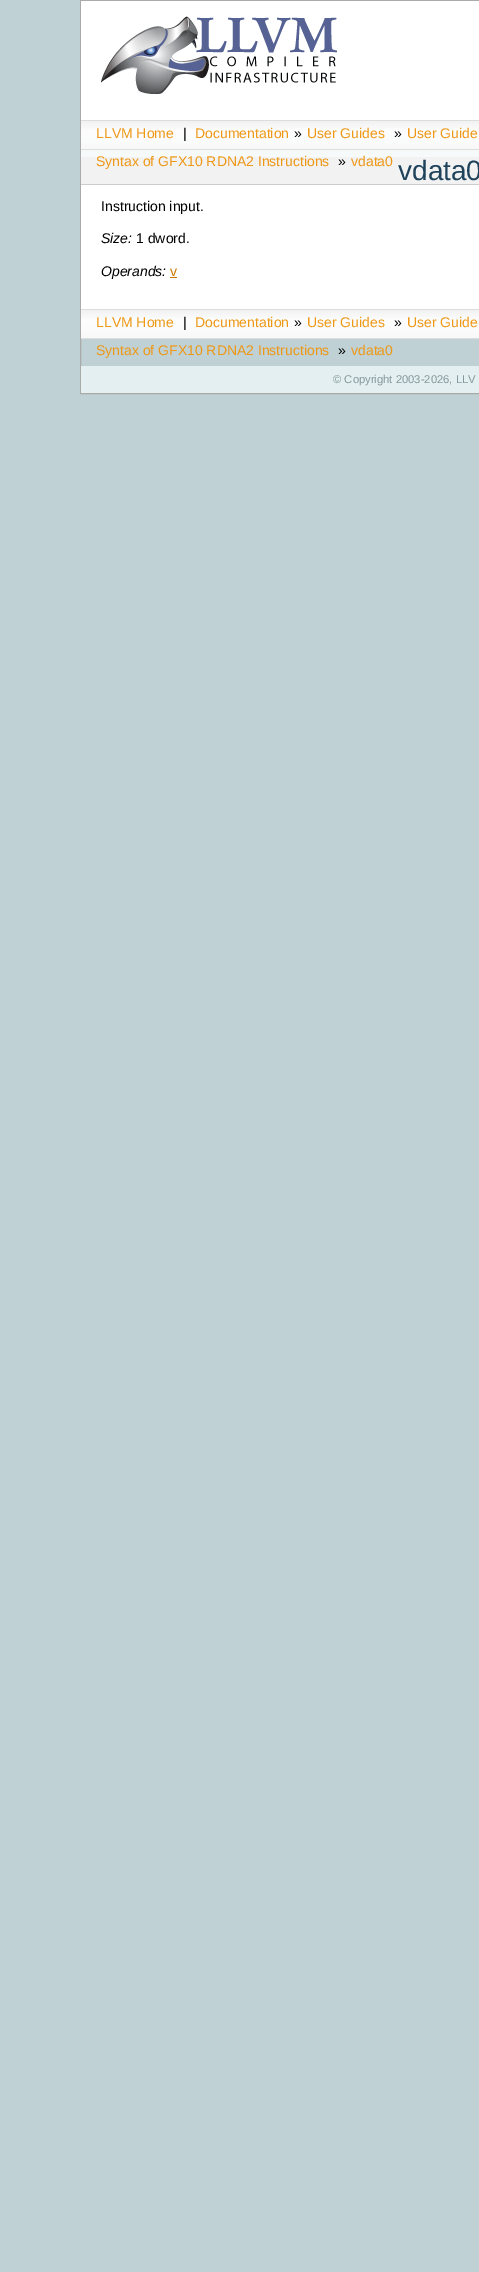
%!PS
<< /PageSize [479 2272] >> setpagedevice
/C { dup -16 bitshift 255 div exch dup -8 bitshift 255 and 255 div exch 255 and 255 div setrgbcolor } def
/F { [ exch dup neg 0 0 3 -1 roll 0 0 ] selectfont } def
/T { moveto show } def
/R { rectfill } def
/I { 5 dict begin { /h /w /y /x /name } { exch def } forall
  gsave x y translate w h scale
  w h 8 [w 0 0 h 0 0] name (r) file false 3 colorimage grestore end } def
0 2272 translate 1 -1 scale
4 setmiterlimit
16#BFD1D4 C
0 0 479 2272 R
16#AAAAAA C
80.5 .5 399 393 rectstroke
16#FFFFFF C
81 1 398 119 R
(1.rgb) 101 16 237 78 I
(2.rgb) 81 121 398 28 I
16#DDDDDD C
81 120 398 1 R
81 149 398 1 R
/LiberationSans-Regular 14 F
16#EE9816 C
(LLVM Home) 96 138 T
16#000000 C
(|) 183 138 T
16#EE9816 C
(Documentation) 195 138 T
16#000000 C
(») 294 138 T
16#EE9816 C
(User Guides) 307 138 T
16#000000 C
(») 394 138 T
16#EE9816 C
(User Guide) 407 138 T
(3.rgb) 81 150 398 7 I
16#F2F2F2 C
81 157 398 27 R
16#EE9816 C
(Syntax of GFX10 RDNA2 Instructions) 96 166 T
16#000000 C
(») 338 166 T
16#EE9816 C
(vdata0) 351 166 T
16#FFFFFF C
81 185 398 124 R
16#CCCCCC C
81 184 398 1 R
/LiberationSans-Regular 28 F
16#20435C C
(vdata0) 398 180 T
/LiberationSans-Regular 14 F
16#000000 C
(Instruction input.) 101 211 T
/LiberationSans-Italic 14 F
(Size:) 101 243 T
/LiberationSans-Regular 14 F
(1 dword.) 136 243 T
/LiberationSans-Italic 14 F
(Operands:) 101 276 T
/LiberationSans-Regular 14 F
16#CA7900 C
(v) 170 276 T
170 277 7 1 R
(2.rgb) 81 310 398 28 I
16#DDDDDD C
81 309 398 1 R
81 338 398 1 R
16#EE9816 C
(LLVM Home) 96 327 T
16#000000 C
(|) 183 327 T
16#EE9816 C
(Documentation) 195 327 T
16#000000 C
(») 294 327 T
16#EE9816 C
(User Guides) 307 327 T
16#000000 C
(») 394 327 T
16#EE9816 C
(User Guide) 407 327 T
(Syntax of GFX10 RDNA2 Instructions) 96 355 T
16#000000 C
(») 338 355 T
16#EE9816 C
(vdata0) 351 355 T
16#E3EFF1 C
81 366 398 27 R
/LiberationSans-Regular 11.25 F
16#86989B C
(© Copyright 2003-2026, LLV) 333 383 T
showpage
